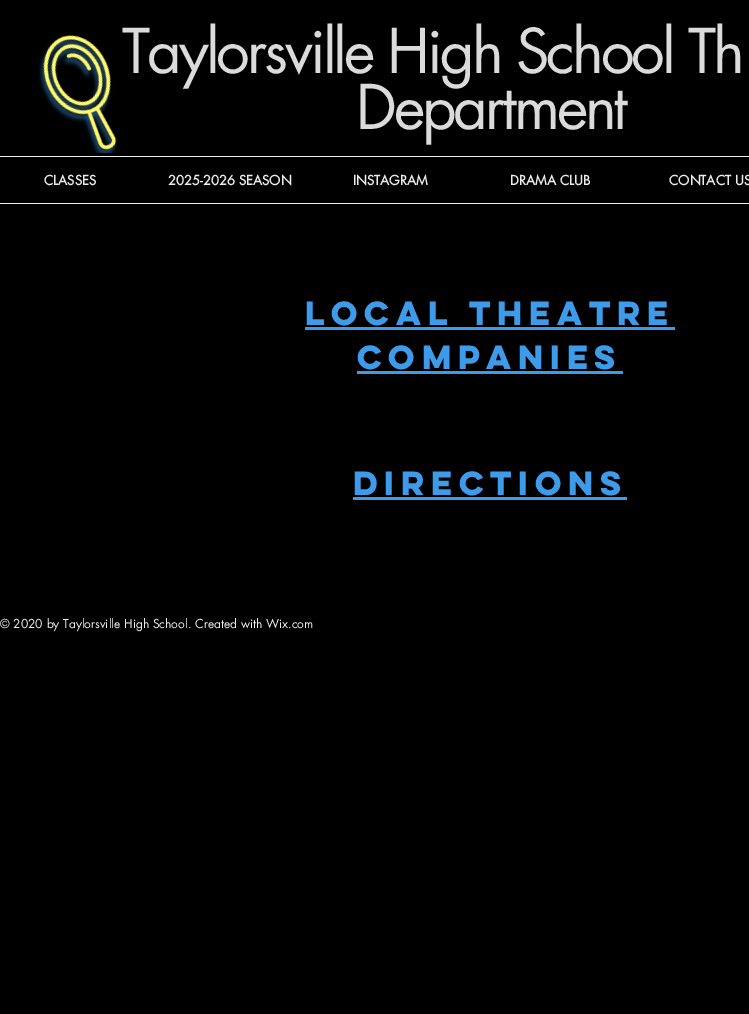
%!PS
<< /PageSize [749 1014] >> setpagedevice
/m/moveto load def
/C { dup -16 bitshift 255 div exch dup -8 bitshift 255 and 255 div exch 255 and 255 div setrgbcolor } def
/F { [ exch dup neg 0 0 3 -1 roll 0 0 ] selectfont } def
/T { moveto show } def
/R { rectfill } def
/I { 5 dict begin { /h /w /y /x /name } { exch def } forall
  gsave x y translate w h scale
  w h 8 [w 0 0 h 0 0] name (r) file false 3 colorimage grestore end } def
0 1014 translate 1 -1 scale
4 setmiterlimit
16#000000 C
0 0 749 1014 R
(1.rgb) 38 35 80 118 I
/futura-Regular 60 F
16#DBDBDB C
122 73 m -3 0 (Taylorsville High School Th) ashow
356 129 m -3 0 (Department) ashow
16#ECECEC C
0 156 749 1 R
0 203 749 1 R
/futura-Bold 13 F
(CLASSES) 44 185 T
(2025-2026 SEASON) 168 185 T
(INSTAGRAM) 353 185 T
(DRAMA CLUB) 510 185 T
(CONTACT US) 669 185 T
/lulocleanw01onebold-Bold 30 F
16#3D9BE9 C
(Local theatre) 305 325 T
305 327 370 3 R
(Companies) 357 369 T
357 371 266 3 R
(Directions) 353 495 T
353 497 274 3 R
/futura-Regular 12 F
16#ECECEC C
(© 2020 by Taylorsville High School. Created with Wix.com) 0 628 T
showpage
